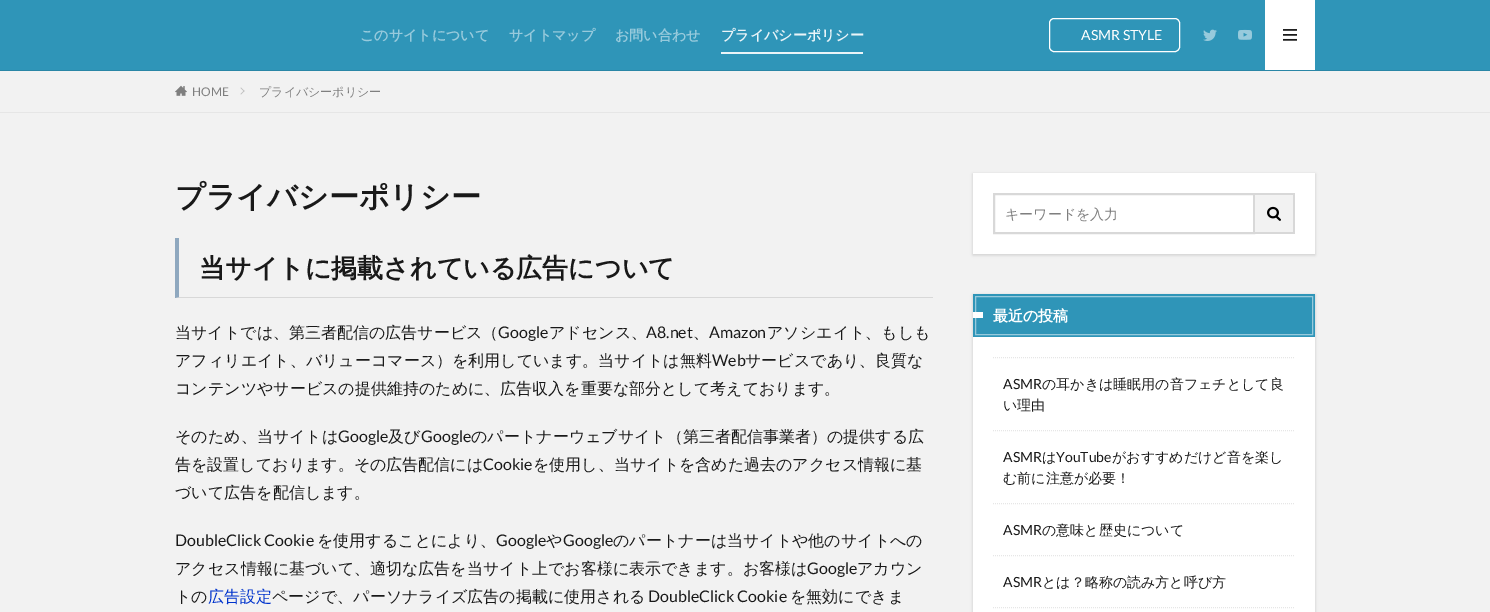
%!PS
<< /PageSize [1490 612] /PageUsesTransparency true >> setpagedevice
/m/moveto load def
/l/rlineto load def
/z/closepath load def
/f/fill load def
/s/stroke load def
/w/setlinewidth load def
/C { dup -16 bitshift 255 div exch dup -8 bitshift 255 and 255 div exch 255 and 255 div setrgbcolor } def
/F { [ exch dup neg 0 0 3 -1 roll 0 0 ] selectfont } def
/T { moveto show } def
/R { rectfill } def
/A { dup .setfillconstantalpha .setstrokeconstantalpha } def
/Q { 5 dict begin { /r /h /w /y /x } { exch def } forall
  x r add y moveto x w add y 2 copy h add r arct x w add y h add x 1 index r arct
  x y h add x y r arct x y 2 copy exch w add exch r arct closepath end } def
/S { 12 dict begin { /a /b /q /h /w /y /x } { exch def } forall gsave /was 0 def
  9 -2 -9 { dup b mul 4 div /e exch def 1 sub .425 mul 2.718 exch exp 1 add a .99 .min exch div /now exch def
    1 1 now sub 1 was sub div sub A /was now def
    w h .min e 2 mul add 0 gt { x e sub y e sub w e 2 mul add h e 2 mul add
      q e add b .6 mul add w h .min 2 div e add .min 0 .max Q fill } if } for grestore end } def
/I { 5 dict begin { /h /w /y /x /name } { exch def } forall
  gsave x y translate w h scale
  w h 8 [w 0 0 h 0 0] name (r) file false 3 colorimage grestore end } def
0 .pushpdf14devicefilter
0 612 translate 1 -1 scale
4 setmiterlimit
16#F2F2F2 C
0 0 1490 612 R
16#2F95B8 C
0 0 1490 70 R
16#2A86A6 C
0 70 1490 1 R
/WenQuanYiZenHei-Bold 14 F
16#97CADC C
(このサイトについて) 360 40 T
(サイトマップ) 509 40 T
(お問い合わせ) 615 40 T
16#EAF4F8 C
721 52 142 2 R
(プライバシーポリシー) 721 40 T
16#FFFFFF C
1049.5 18.5 130 33 4.5 Q s
/Lato-Regular 14 F
(ASMR STYLE) 1081 40 T
(1.rgb) 1203 29 14 12 I
(2.rgb) 1238 29 14 11 I
1265 0 50 70 R
(3.rgb) 1283 29 14 12 I
16#E6E6E6 C
0 112 1490 1 R
(4.rgb) 175 85 12 11 I
/Lato-Regular 12 F
16#7F7F7F C
(HOME) 192 96 T
16#BFBFBF C
241 87.5 m 3.5 3.5 l -.5 .5 l -3.5 -3.5 l z f
244 90.5 m .5 .5 l -3.5 3.5 l -.5 -.5 l z f
/WenQuanYiZenHei-Medium 12 F
16#7F7F7F C
(プライバシーポリシー) 259 96 T
/WenQuanYiZenHei-Bold 30 F
16#191919 C
(プライバシーポリシー) 175 207 T
16#D8D8D8 C
933 298 m -758 0 l 4 -1 l 754 0 l z f
16#8FA8BF C
175 298 m 0 -60 l 4 0 l 0 59 l z f
/WenQuanYiZenHei-Bold 26 F
16#191919 C
(当サイトに掲載されている広告について) 199 277 T
/WenQuanYiZenHei-Medium 16 F
(当サイトでは、第三者配信の広告サービス（) 175 338 T
/Lato-Regular 16 F
(Google) 498 338 T
/WenQuanYiZenHei-Medium 16 F
(アドセンス、) 549 338 T
/Lato-Regular 16 F
(A8.net) 646 338 T
/WenQuanYiZenHei-Medium 16 F
(、) 693 338 T
/Lato-Regular 16 F
(Amazon) 709 338 T
/WenQuanYiZenHei-Medium 16 F
(アソシエイト、もしも) 767 338 T
(アフィリエイト、バリューコマース）を利用しています。当サイトは無料) 175 366 T
/Lato-Regular 16 F
(Web) 712 366 T
/WenQuanYiZenHei-Medium 16 F
(サービスであり、良質な) 745 366 T
(コンテンツやサービスの提供維持のために、広告収入を重要な部分として考えております。) 175 394 T
(そのため、当サイトは) 175 442 T
/Lato-Regular 16 F
(Google) 338 442 T
/WenQuanYiZenHei-Medium 16 F
(及び) 388 442 T
/Lato-Regular 16 F
(Google) 421 442 T
/WenQuanYiZenHei-Medium 16 F
(のパートナーウェブサイト（第三者配信事業者）の提供する広) 471 442 T
(告を設置しております。その広告配信には) 175 470 T
/Lato-Regular 16 F
(Cookie) 483 470 T
/WenQuanYiZenHei-Medium 16 F
(を使用し、当サイトを含めた過去のアクセス情報に基) 533 470 T
(づいて広告を配信します。) 175 498 T
/Lato-Regular 16 F
(DoubleClick Cookie) 175 546 T
/WenQuanYiZenHei-Medium 16 F
(を使用することにより、) 317 546 T
/Lato-Regular 16 F
(Google) 496 546 T
/WenQuanYiZenHei-Medium 16 F
(や) 546 546 T
/Lato-Regular 16 F
(Google) 563 546 T
/WenQuanYiZenHei-Medium 16 F
(のパートナーは当サイトや他のサイトへの) 613 546 T
(アクセス情報に基づいて、適切な広告を当サイト上でお客様に表示できます。お客様は) 175 574 T
/Lato-Regular 16 F
(Google) 807 574 T
/WenQuanYiZenHei-Medium 16 F
(アカウン) 857 574 T
(トの) 175 602 T
16#0033CC C
(広告設定) 208 602 T
16#191919 C
(ページで、パーソナライズ広告の掲載に使用される) 272 602 T
/Lato-Regular 16 F
(DoubleClick Cookie) 648 602 T
/WenQuanYiZenHei-Medium 16 F
(を無効にできま) 790 602 T
16#000000 C
973 174 342 81 0 1.5 .15 S
16#FFFFFF C
973 173 342 81 R
16#D8D8D8 C
2 w
994 194 260 39 rectstroke
/WenQuanYiZenHei-Medium 14 F
16#7F7F7F C
(キーワードを入力) 1005 219 T
16#F2F2F2 C
1255 195 38 37 R
16#D8D8D8 C
1255 193 40 2 R
1293 193 2 41 R
1255 232 40 2 R
(5.rgb) 1267 206 14 15 I
16#000000 C
973 295 342 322 0 1.5 .15 S
16#FFFFFF C
973 337 342 275 R
16#2F95B8 C
973 294 342 43 R
16#97CADC C
1 w
975.5 296.5 337 38 rectstroke
16#FFFFFF C
973 312 10 6 R
/WenQuanYiZenHei-Bold 15 F
(最近の投稿) 993 321 T
16#E6E6E6 C
[1 1] 0 setdash
993 357.5 m 302 0 l s
993 430.5 m 302 0 l s
/Lato-Regular 14 F
16#191919 C
(ASMR) 1003 389 T
/WenQuanYiZenHei-Medium 14 F
(の耳かきは睡眠用の音フェチとして良) 1042 389 T
(い理由) 1003 410 T
16#E6E6E6 C
993 503.5 m 302 0 l s
/Lato-Regular 14 F
16#191919 C
(ASMR) 1003 462 T
/WenQuanYiZenHei-Medium 14 F
(は) 1042 462 T
/Lato-Regular 14 F
(YouTube) 1056 462 T
/WenQuanYiZenHei-Medium 14 F
(がおすすめだけど音を楽し) 1112 462 T
(む前に注意が必要！) 1003 483 T
16#E6E6E6 C
993 555.5 m 302 0 l s
/Lato-Regular 14 F
16#191919 C
(ASMR) 1003 535 T
/WenQuanYiZenHei-Medium 14 F
(の意味と歴史について) 1042 535 T
16#E6E6E6 C
993 607.5 m 302 0 l s
/Lato-Regular 14 F
16#191919 C
(ASMR) 1003 587 T
/WenQuanYiZenHei-Medium 14 F
(とは？略称の読み方と呼び方) 1042 587 T
.poppdf14devicefilter showpage
